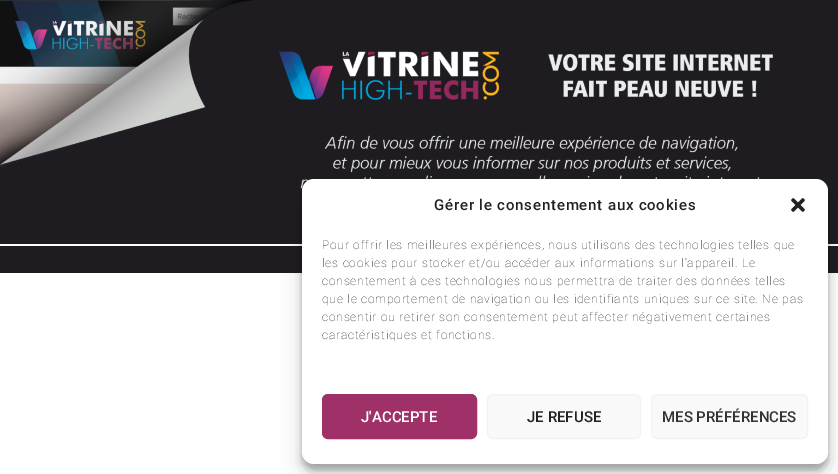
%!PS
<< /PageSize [838 474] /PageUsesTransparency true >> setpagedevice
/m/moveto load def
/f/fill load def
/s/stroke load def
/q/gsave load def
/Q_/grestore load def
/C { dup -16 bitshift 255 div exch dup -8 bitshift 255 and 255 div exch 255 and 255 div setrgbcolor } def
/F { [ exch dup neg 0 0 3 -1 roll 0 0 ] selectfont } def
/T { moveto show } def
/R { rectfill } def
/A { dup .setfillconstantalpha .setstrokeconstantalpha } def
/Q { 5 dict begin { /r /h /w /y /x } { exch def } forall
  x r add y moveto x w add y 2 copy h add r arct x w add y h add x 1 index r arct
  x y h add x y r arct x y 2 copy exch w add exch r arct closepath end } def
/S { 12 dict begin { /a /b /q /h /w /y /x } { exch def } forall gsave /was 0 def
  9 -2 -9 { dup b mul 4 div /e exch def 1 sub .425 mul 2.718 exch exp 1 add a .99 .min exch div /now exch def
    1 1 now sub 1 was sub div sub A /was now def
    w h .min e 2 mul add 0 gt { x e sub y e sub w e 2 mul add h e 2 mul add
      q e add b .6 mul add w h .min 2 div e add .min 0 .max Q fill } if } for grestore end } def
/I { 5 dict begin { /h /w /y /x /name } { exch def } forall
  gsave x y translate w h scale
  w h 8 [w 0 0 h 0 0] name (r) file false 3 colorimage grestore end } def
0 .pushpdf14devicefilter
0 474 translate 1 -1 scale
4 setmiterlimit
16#FFFFFF C
0 0 838 474 R
(1.rgb) 0 0 838 244 I
16#1E1C21 C
0 246 838 27 R
16#000000 C
302 185 526 285 12 3 .23 S
302 189 526 285 12 10 .19 S
16#FFFFFF C
302 179 526 285 12 Q f
/Roboto-Medium 15 F
16#222222 C
434 210 m .8 0 (Gérer le consentement aux cookies) ashow
(2.rgb) 791 198 14 14 I
/Roboto-Thin 12 F
322 249 m .8 0 (Pour offrir les meilleures expériences, nous utilisons des technologies telles que) ashow
322 267 m .8 0 (les cookies pour stocker et/ou accéder aux informations sur l'appareil. Le) ashow
322 285 m .8 0 (consentement à ces technologies nous permettra de traiter des données telles) ashow
322 303 m .8 0 (que le comportement de navigation ou les identifiants uniques sur ce site. Ne pas) ashow
322 321 m .8 0 (consentir ou retirer son consentement peut affecter négativement certaines) ashow
322 339 m .8 0 (caractéristiques et fonctions.) ashow
16#9F3168 C
322.5 394.5 154 44 5.5 Q q f Q_
s
/Roboto-Medium 15 F
16#FFFFFF C
(J'ACCEPTE) 361 422 T
16#F9F9F9 C
487.5 394.5 153 44 5.5 Q q f Q_
16#F2F2F2 C
s
16#222222 C
(JE REFUSE) 527 422 T
16#F9F9F9 C
651.5 394.5 156 44 5.5 Q q f Q_
16#F2F2F2 C
s
16#333333 C
(MES PRÉFÉRENCES) 662 422 T
.poppdf14devicefilter showpage
